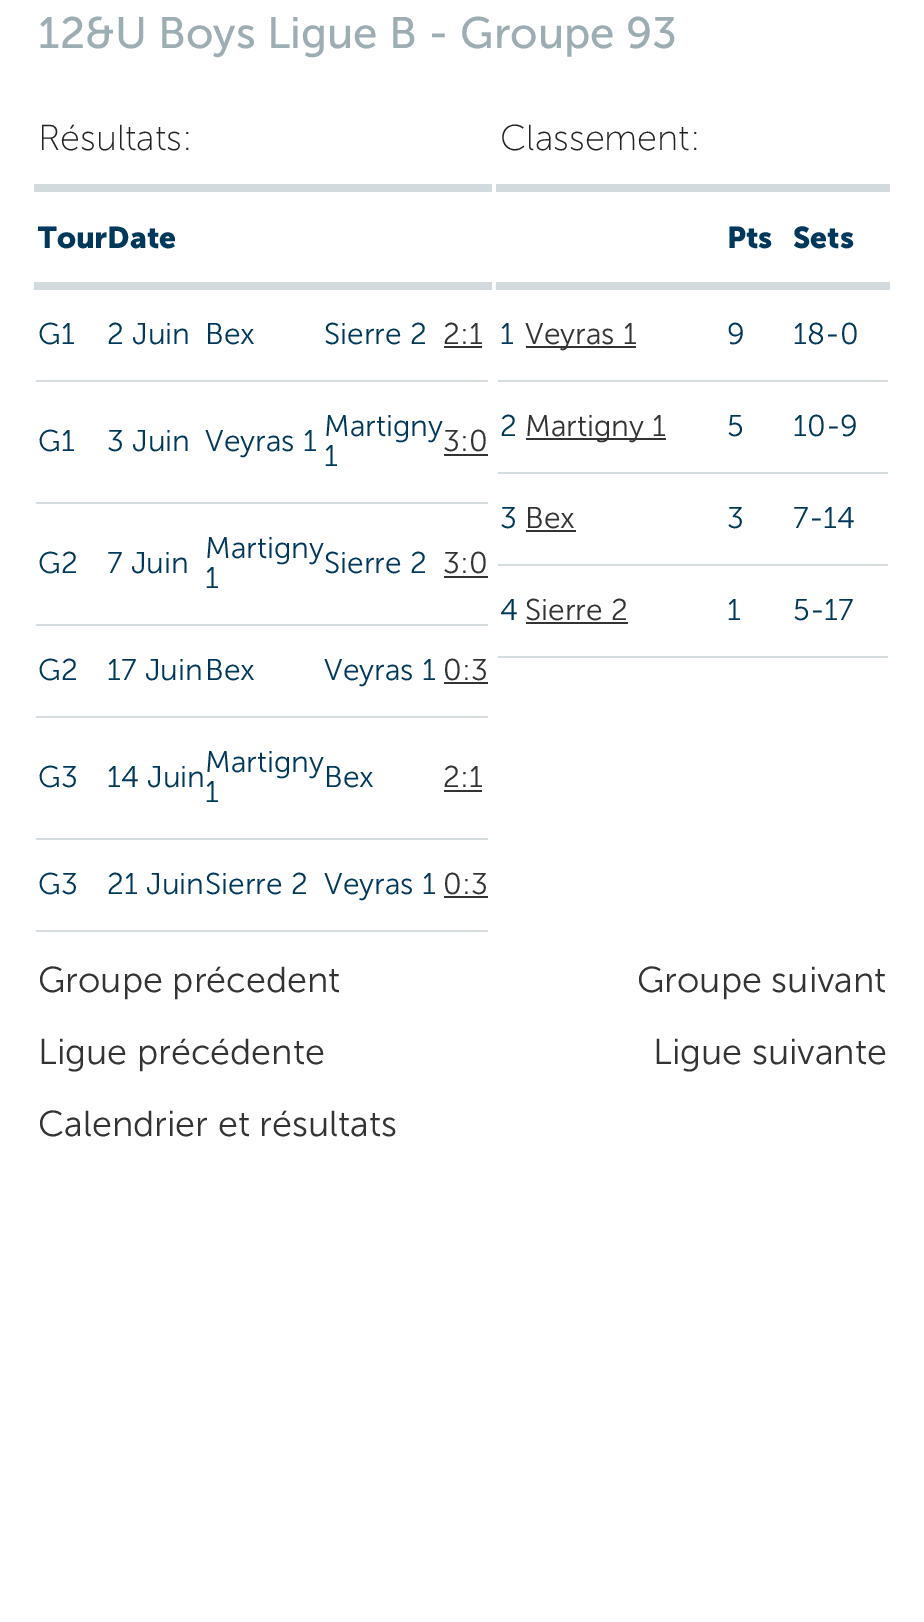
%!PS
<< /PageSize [924 1622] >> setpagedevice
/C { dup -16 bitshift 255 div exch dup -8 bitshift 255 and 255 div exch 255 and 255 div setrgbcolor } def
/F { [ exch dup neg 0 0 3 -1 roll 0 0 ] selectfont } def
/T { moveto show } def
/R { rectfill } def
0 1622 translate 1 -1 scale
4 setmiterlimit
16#FFFFFF C
0 0 924 1622 R
/MuseoSans-Regular 44 F
16#9CADB3 C
(12&U Boys Ligue B - Groupe 93) 38 48 T
/MuseoSans-ExtraLight 36 F
16#222222 C
(Résultats:) 38 150 T
16#D2DADD C
34 184 458 8 R
34 282 458 8 R
/MuseoSans-Bold 30 F
16#00385B C
(TourDate) 38 248 T
/MuseoSans-Light 30 F
(G1) 38 344 T
(2 Juin) 107 344 T
(Bex) 205 344 T
(Sierre 2) 324 344 T
16#D5DDE0 C
36 380 452 2 R
16#333333 C
(2:1) 443 344 T
444 346 38 2 R
16#00385B C
(G1) 38 451 T
(3 Juin) 107 451 T
(Veyras 1) 205 451 T
(Martigny) 324 436 T
(1) 324 466 T
16#D5DDE0 C
36 502 452 2 R
16#333333 C
(3:0) 443 451 T
444 454 44 2 R
16#00385B C
(G2) 38 573 T
(7 Juin) 107 573 T
(Martigny) 205 558 T
(1) 205 588 T
(Sierre 2) 324 573 T
16#D5DDE0 C
36 624 452 2 R
16#333333 C
(3:0) 443 573 T
444 576 44 2 R
16#00385B C
(G2) 38 680 T
(17 Juin) 107 680 T
(Bex) 205 680 T
(Veyras 1) 324 680 T
16#D5DDE0 C
36 716 452 2 R
16#333333 C
(0:3) 443 680 T
444 682 44 2 R
16#00385B C
(G3) 38 787 T
(14 Juin) 107 787 T
(Martigny) 205 772 T
(1) 205 802 T
(Bex) 324 787 T
16#D5DDE0 C
36 838 452 2 R
16#333333 C
(2:1) 443 787 T
444 790 38 2 R
16#00385B C
(G3) 38 894 T
(21 Juin) 107 894 T
(Sierre 2) 205 894 T
(Veyras 1) 324 894 T
16#D5DDE0 C
36 930 452 2 R
16#333333 C
(0:3) 443 894 T
444 896 44 2 R
/MuseoSans-ExtraLight 36 F
16#222222 C
(Classement:) 500 150 T
16#D2DADD C
496 184 394 8 R
496 282 394 8 R
/MuseoSans-Bold 30 F
16#00385B C
(Pts) 727 248 T
(Sets) 793 248 T
/MuseoSans-Light 30 F
(1) 500 344 T
16#333333 C
526 346 110 2 R
(Veyras 1) 525 344 T
16#00385B C
(9) 727 344 T
16#D5DDE0 C
498 380 390 2 R
16#00385B C
(18-0) 793 344 T
(2) 500 436 T
16#333333 C
526 438 140 2 R
(Martigny 1) 525 436 T
16#00385B C
(5) 727 436 T
16#D5DDE0 C
498 472 390 2 R
16#00385B C
(10-9) 793 436 T
(3) 500 528 T
16#333333 C
(Bex) 525 528 T
526 530 50 2 R
16#00385B C
(3) 727 528 T
16#D5DDE0 C
498 564 390 2 R
16#00385B C
(7-14) 793 528 T
(4) 500 620 T
16#333333 C
(Sierre 2) 525 620 T
526 622 102 2 R
16#00385B C
(1) 727 620 T
16#D5DDE0 C
498 656 390 2 R
16#00385B C
(5-17) 793 620 T
/MuseoSans-Light 36 F
16#333333 C
(Groupe précedent) 38 992 T
(Groupe suivant) 637 992 T
(Ligue précédente) 38 1064 T
(Ligue suivante) 653 1064 T
(Calendrier et résultats) 38 1136 T
showpage
